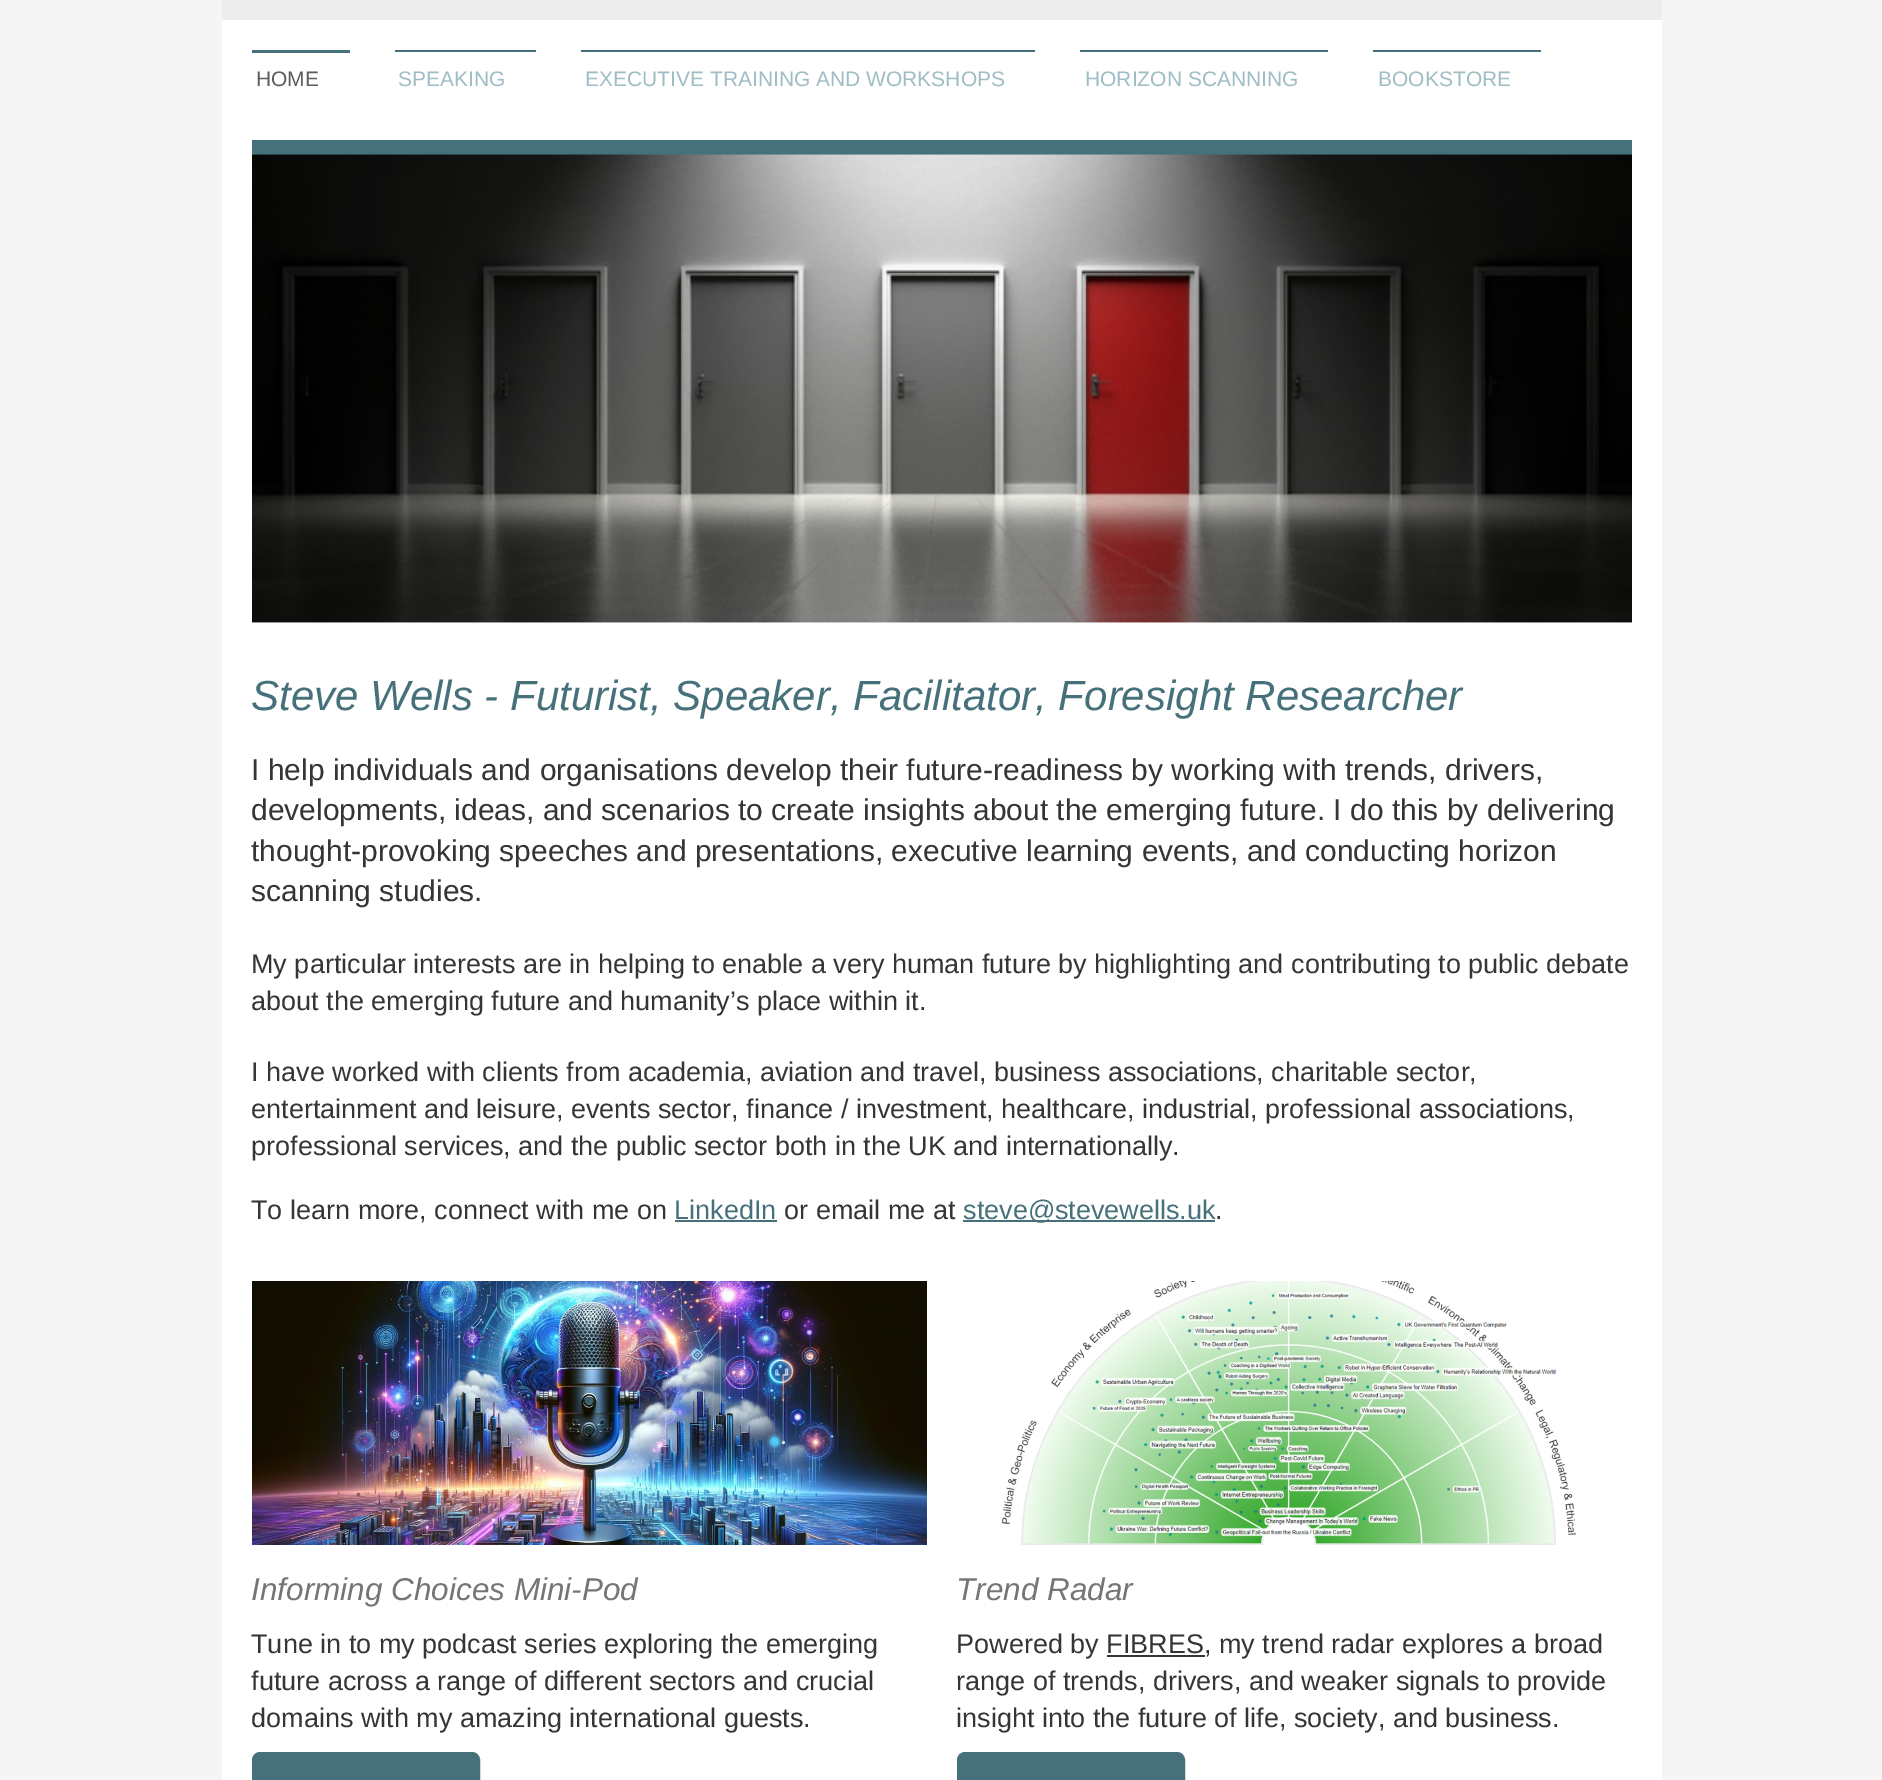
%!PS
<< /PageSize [1882 1780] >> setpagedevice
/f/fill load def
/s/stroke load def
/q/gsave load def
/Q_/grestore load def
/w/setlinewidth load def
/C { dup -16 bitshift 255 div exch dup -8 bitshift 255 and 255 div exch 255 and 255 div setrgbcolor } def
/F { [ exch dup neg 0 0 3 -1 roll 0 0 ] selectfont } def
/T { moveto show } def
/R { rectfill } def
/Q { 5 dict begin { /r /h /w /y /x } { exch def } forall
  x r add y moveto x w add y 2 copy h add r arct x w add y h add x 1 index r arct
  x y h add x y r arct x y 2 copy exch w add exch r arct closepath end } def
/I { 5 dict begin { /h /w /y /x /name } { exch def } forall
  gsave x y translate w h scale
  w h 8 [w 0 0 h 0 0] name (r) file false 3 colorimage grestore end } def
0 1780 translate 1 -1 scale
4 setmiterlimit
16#F5F5F5 C
0 0 1882 1780 R
16#FFFFFF C
222 20 1440 1760 R
16#EDEDED C
222 0 1440 20 R
16#47717A C
252 50 98 3 R
/LiberationSans-Regular 21 F
16#5E5E5E C
(HOME) 256 86 T
16#47717A C
395 50 141 2 R
16#9EBDC4 C
(SPEAKING) 398 86 T
16#47717A C
581 50 454 2 R
16#9EBDC4 C
(EXECUTIVE TRAINING AND WORKSHOPS) 585 86 T
16#47717A C
1080 50 248 2 R
16#9EBDC4 C
(HORIZON SCANNING) 1085 86 T
16#47717A C
1373 50 168 2 R
16#9EBDC4 C
(BOOKSTORE) 1378 86 T
16#47717A C
252 140 1380 15 R
(1.rgb) 252 154 1380 469 I
(2.rgb) 252 154 1380 469 I
/Arimo-Italic 42 F
(Steve Wells - Futurist, Speaker, Facilitator, Foresight Researcher) 251 710 T
/Arimo-Regular 30 F
16#353535 C
(I help individuals and organisations develop their future-readiness by working with trends, drivers,) 251 780 T
(developments, ideas, and scenarios to create insights about the emerging future. I do this by delivering) 251 820 T
(thought-provoking speeches and presentations, executive learning events, and conducting horizon) 251 861 T
(scanning studies.) 251 901 T
/Arimo-Regular 27 F
(My particular interests are in helping to enable a very human future by highlighting and contributing to public debate) 251 973 T
(about the emerging future and humanity’s place within it.) 251 1010 T
(I have worked with clients from academia, aviation and travel, business associations, charitable sector,) 251 1081 T
(entertainment and leisure, events sector, finance / investment, healthcare, industrial, professional associations,) 251 1118 T
(professional services, and the public sector both in the UK and internationally.) 251 1155 T
(To learn more, connect with me on) 251 1219 T
16#47717A C
(LinkedIn) 674 1219 T
675 1220 102 2 R
16#353535 C
(or email me at) 784 1219 T
16#47717A C
963 1220 252 2 R
(steve@stevewells.uk) 963 1219 T
16#353535 C
(.) 1215 1219 T
(3.rgb) 252 1281 675 264 I
/Arimo-Italic 31.5 F
16#757575 C
(Informing Choices Mini-Pod) 251 1600 T
/Arimo-Regular 27 F
16#353535 C
(Tune in to my podcast series exploring the emerging) 251 1653 T
(future across a range of different sectors and crucial) 251 1690 T
(domains with my amazing international guests.) 251 1727 T
16#47717A C
253 1753 226 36 7 Q q f Q_
2 w
s
(4.rgb) 1001 1281 576 264 I
/Arimo-Italic 31.5 F
16#757575 C
(Trend Radar) 956 1600 T
/Arimo-Regular 27 F
16#353535 C
(Powered by FIBRES, my trend radar explores a broad) 956 1653 T
1107 1655 98 2 R
(range of trends, drivers, and weaker signals to provide) 956 1690 T
(insight into the future of life, society, and business.) 956 1727 T
16#47717A C
958 1753 226 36 7 Q q f Q_
s
showpage
